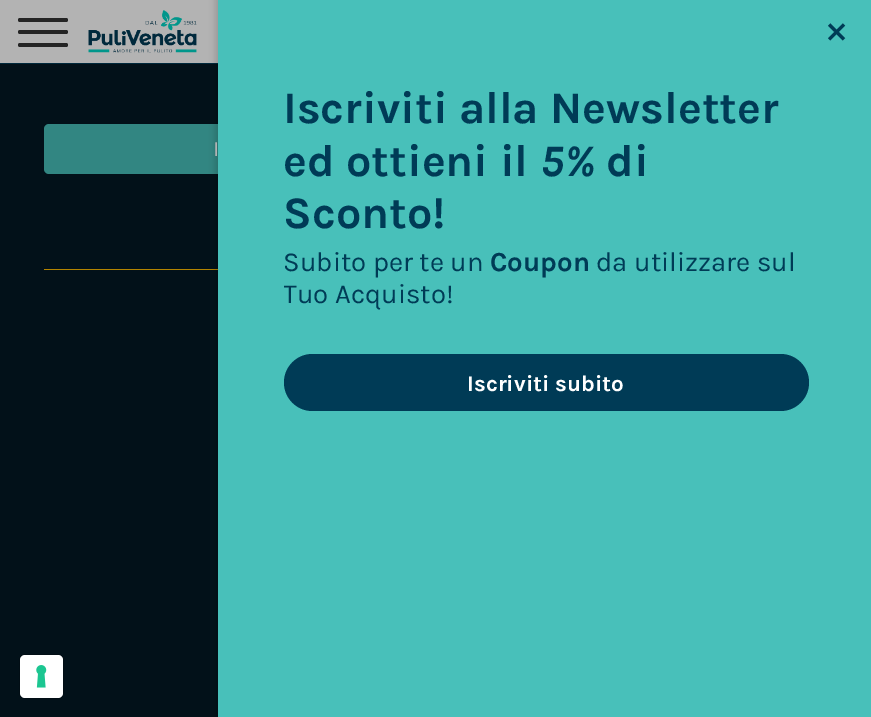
%!PS
<< /PageSize [871 717] /PageUsesTransparency true >> setpagedevice
/f/fill load def
/s/stroke load def
/q/gsave load def
/Q_/grestore load def
/C { dup -16 bitshift 255 div exch dup -8 bitshift 255 and 255 div exch 255 and 255 div setrgbcolor } def
/F { [ exch dup neg 0 0 3 -1 roll 0 0 ] selectfont } def
/T { moveto show } def
/R { rectfill } def
/A { dup .setfillconstantalpha .setstrokeconstantalpha } def
/Q { 5 dict begin { /r /h /w /y /x } { exch def } forall
  x r add y moveto x w add y 2 copy h add r arct x w add y h add x 1 index r arct
  x y h add x y r arct x y 2 copy exch w add exch r arct closepath end } def
/S { 12 dict begin { /a /b /q /h /w /y /x } { exch def } forall gsave /was 0 def
  9 -2 -9 { dup b mul 4 div /e exch def 1 sub .425 mul 2.718 exch exp 1 add a .99 .min exch div /now exch def
    1 1 now sub 1 was sub div sub A /was now def
    w h .min e 2 mul add 0 gt { x e sub y e sub w e 2 mul add h e 2 mul add
      q e add b .6 mul add w h .min 2 div e add .min 0 .max Q fill } if } for grestore end } def
/I { 5 dict begin { /h /w /y /x /name } { exch def } forall
  gsave x y translate w h scale
  w h 8 [w 0 0 h 0 0] name (r) file false 3 colorimage grestore end } def
0 .pushpdf14devicefilter
0 717 translate 1 -1 scale
4 setmiterlimit
16#021119 C
0 0 871 717 R
16#B3B3B3 C
0 0 218 63 R
16#00293C C
0 63 218 1 R
16#242424 C
18 18 50 4 2 Q f
18 30 50 4 2 Q f
18 43 50 4 2 Q f
(1.rgb) 88 10 109 43 I
16#328682 C
44 124 784 50 5 Q f
16#B38400 C
44 269 174 1 R
16#000000 C
215 -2 654 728 0 3 .15 S
16#48C0BA C
218 0 653 717 R
/Karla-Regular 44 F
16#003B56 C
(×) 825 43 T
284 354 525 57 28.5 Q f
/Karla-Bold 22.5 F
16#FFFFFF C
(Iscriviti subito) 467 391 T
/Karla-Bold 45 F
16#003B56 C
(Iscriviti alla Newsletter) 283 123 T
(ed ottieni il) 283 176 T
/Karla-BoldItalic 45 F
(5%) 540 176 T
/Karla-Bold 45 F
(di) 606 176 T
(Sconto!) 283 228 T
/Karla-Regular 27.5 F
(Subito per te un) 283 271 T
/Karla-Bold 27.5 F
(Coupon) 490 271 T
/Karla-Regular 27.5 F
(da utilizzare sul) 596 271 T
q
284 75 522 241 rectclip
(Tuo Acquisto!) 283 303 T
Q_
/Karla-Regular 22 F
16#B3B3B3 C
(I) 213 156 T
16#020E15 C
19.5 654.5 44 44 5.5 Q s
16#FFFFFF C
20 655 43 43 5 Q f
(2.rgb) 36 665 11 23 I
.poppdf14devicefilter showpage
